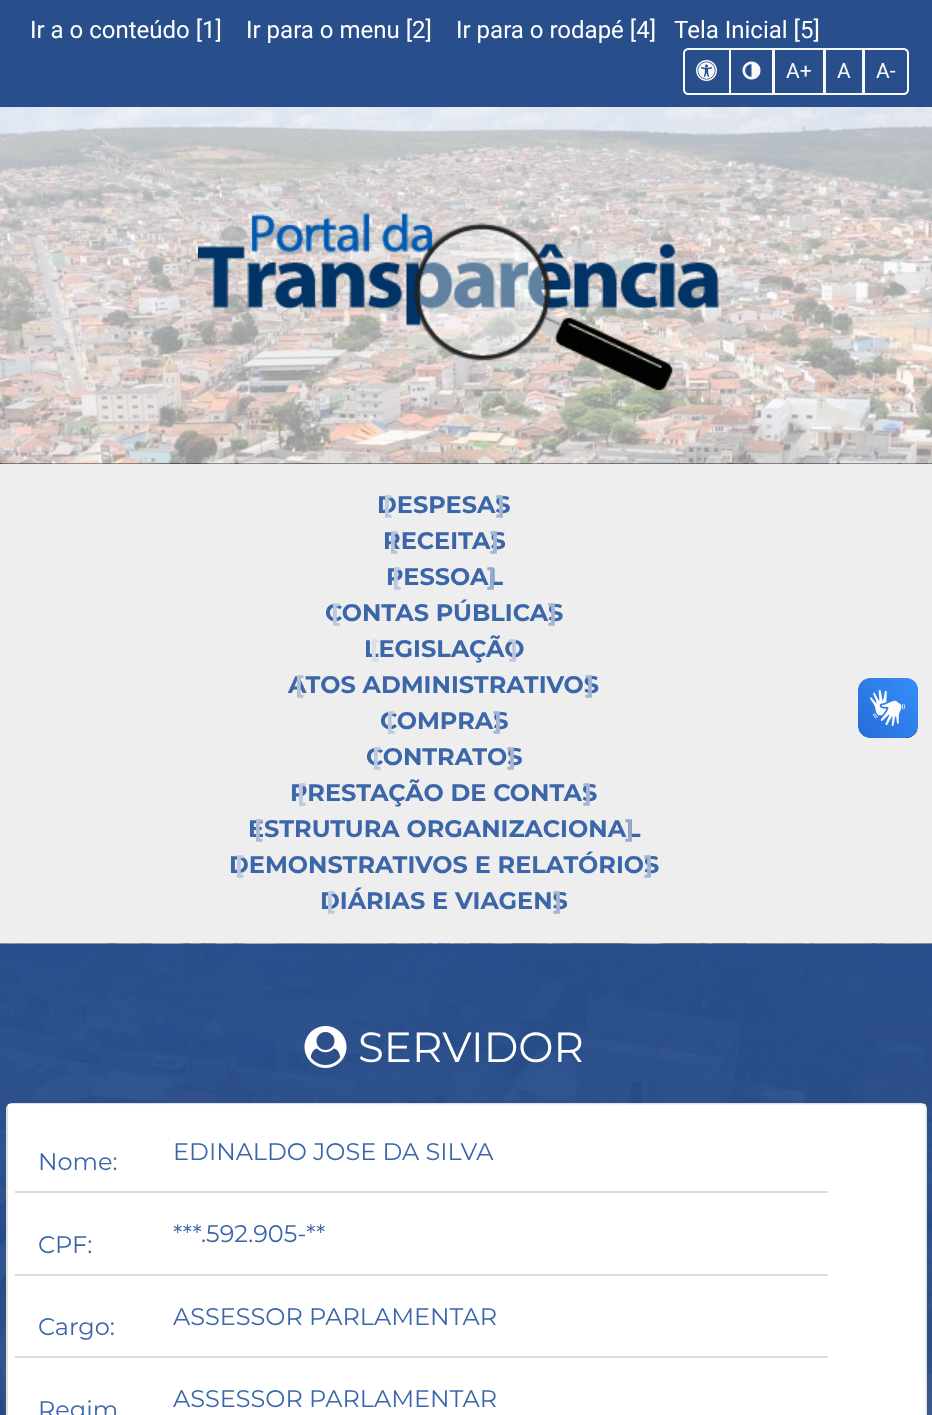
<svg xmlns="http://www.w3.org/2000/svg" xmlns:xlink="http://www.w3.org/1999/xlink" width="932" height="1415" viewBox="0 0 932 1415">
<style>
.cls-1{font:24px Roboto;fill:#ffffff}
.cls-2{font:21px Roboto;fill:#f8f9fa}
.cls-3{font:bold 24px Montserrat;fill:#3c66aa}
.cls-4{font:bold 24px Montserrat;fill:#bcc8db}
.cls-5{font:bold 24px Montserrat;fill:#a4b5d2}
.cls-6{font:bold 24px Montserrat;fill:#b4c2d8}
.cls-7{font:bold 24px Montserrat;fill:#95aacc}
.cls-8{font:bold 24px Montserrat;fill:#dadee6}
.cls-9{font:bold 24px Montserrat;fill:#aabad4}
.cls-10{font:42px Montserrat;fill:#ffffff}
.cls-11{font:24px Montserrat;fill:#3c66aa}
</style>
<defs>
<linearGradient id="g1" gradientUnits="userSpaceOnUse" x1="7.5" y1="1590" x2="926" y2="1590"><stop offset="0" stop-color="#ffffff" stop-opacity="0.98"/><stop offset="1" stop-color="#ffffff" stop-opacity="0.55"/></linearGradient>
</defs>
<rect width="100%" height="100%" fill="#eeeeee"/>
<rect fill="#284e8c" x="0" y="0" width="932" height="107"/>
<path fill="none" stroke="#f8f9fa" stroke-width="2" d="M688 49H730V94H688C686 94 684 92 684 90V53C684 51 686 49 688 49Z"/>
<image xlink:href="image0.png" x="696" y="60" width="21" height="21"/>
<rect fill="none" stroke="#f8f9fa" stroke-width="2" x="730" y="49" width="43" height="45"/>
<image xlink:href="image1.png" x="742" y="61" width="19" height="19"/>
<rect fill="none" stroke="#f8f9fa" stroke-width="2" x="774" y="49" width="50" height="45"/>
<rect fill="none" stroke="#f8f9fa" stroke-width="2" x="825" y="49" width="38" height="45"/>
<path fill="none" stroke="#f8f9fa" stroke-width="2" d="M864 49H904C906 49 908 51 908 53V90C908 92 906 94 904 94H864Z"/>
<rect fill="#000000" x="0" y="463" width="932" height="1"/>
<image xlink:href="image2.png" x="0" y="107" width="932" height="357"/>
<image xlink:href="image3.png" x="198" y="212" width="521" height="179"/>
<image xlink:href="image4.png" x="0" y="943" width="932" height="472"/>
<image xlink:href="image5.png" x="304" y="1026" width="43" height="42"/>
<rect fill="#ffffff" x="6" y="1103" width="921" height="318" rx="6"/>
<rect fill="none" stroke="#000000" stroke-opacity="0.12" stroke-width="2" x="7" y="1104" width="919" height="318" rx="5"/>
<rect fill="url(#g1)" x="8" y="1104" width="918" height="311"/>
<rect fill="#dddada" x="15" y="1191" width="813" height="2"/>
<rect fill="#dddada" x="15" y="1274" width="813" height="2"/>
<rect fill="#dddada" x="15" y="1356" width="813" height="2"/>
<image xlink:href="image6.png" x="858" y="678" width="60" height="60"/>
<image xlink:href="image7.png" x="858" y="678" width="60" height="60"/>
<text class="cls-1" x="30" y="38">Ir a o conteúdo [1]</text>
<text class="cls-1" x="246" y="38">Ir para o menu [2]</text>
<text class="cls-1" x="456" y="38">Ir para o rodapé [4]</text>
<text class="cls-1" x="674" y="38">Tela Inicial [5]</text>
<text class="cls-2" x="786" y="78">A+</text>
<text class="cls-2" x="837" y="78">A</text>
<text class="cls-2" x="876" y="78">A-</text>
<text class="cls-3" x="377" y="513">DESPESAS</text>
<text class="cls-4" x="383" y="513">[</text>
<text class="cls-5" x="496" y="513">]</text>
<text class="cls-3" x="383" y="549">RECEITAS</text>
<text class="cls-6" x="389" y="549">[</text>
<text class="cls-5" x="490" y="549">]</text>
<text class="cls-3" x="386" y="585">PESSOAL</text>
<text class="cls-4" x="392" y="585">[</text>
<text class="cls-7" x="487" y="585">]</text>
<text class="cls-3" x="325" y="621">CONTAS PÚBLICAS</text>
<text class="cls-4" x="331" y="621">[</text>
<text class="cls-5" x="548" y="621">]</text>
<text class="cls-3" x="364" y="657">LEGISLAÇÃO</text>
<text class="cls-8" x="370" y="657">[</text>
<text class="cls-4" x="509" y="657">]</text>
<text class="cls-3" x="288" y="693">ATOS ADMINISTRATIVOS</text>
<text class="cls-6" x="295" y="693">[</text>
<text class="cls-5" x="585" y="693">]</text>
<text class="cls-3" x="380" y="729">COMPRAS</text>
<text class="cls-4" x="386" y="729">[</text>
<text class="cls-5" x="493" y="729">]</text>
<text class="cls-3" x="366" y="765">CONTRATOS</text>
<text class="cls-4" x="372" y="765">[</text>
<text class="cls-5" x="507" y="765">]</text>
<text class="cls-3" x="290" y="801">PRESTAÇÃO DE CONTAS</text>
<text class="cls-4" x="297" y="801">[</text>
<text class="cls-5" x="583" y="801">]</text>
<text class="cls-3" x="248" y="837">ESTRUTURA ORGANIZACIONAL</text>
<text class="cls-9" x="254" y="837">[</text>
<text class="cls-7" x="625" y="837">]</text>
<text class="cls-3" x="229" y="873">DEMONSTRATIVOS E RELATÓRIOS</text>
<text class="cls-4" x="235" y="873">[</text>
<text class="cls-5" x="644" y="873">]</text>
<text class="cls-3" x="320" y="909">DIÁRIAS E VIAGENS</text>
<text class="cls-4" x="326" y="909">[</text>
<text class="cls-5" x="553" y="909">]</text>
<text class="cls-10" x="358" y="1062">SERVIDOR</text>
<text class="cls-11" x="38" y="1170">Nome:</text>
<text class="cls-11" x="173" y="1160">EDINALDO JOSE DA SILVA</text>
<text class="cls-11" x="173" y="1242">***.592.905-**</text>
<text class="cls-11" x="38" y="1253">CPF:</text>
<text class="cls-11" x="38" y="1335">Cargo:</text>
<text class="cls-11" x="173" y="1325">ASSESSOR PARLAMENTAR</text>
<text class="cls-11" x="38" y="1418">Regim</text>
<text class="cls-11" x="173" y="1407">ASSESSOR PARLAMENTAR</text>
</svg>
